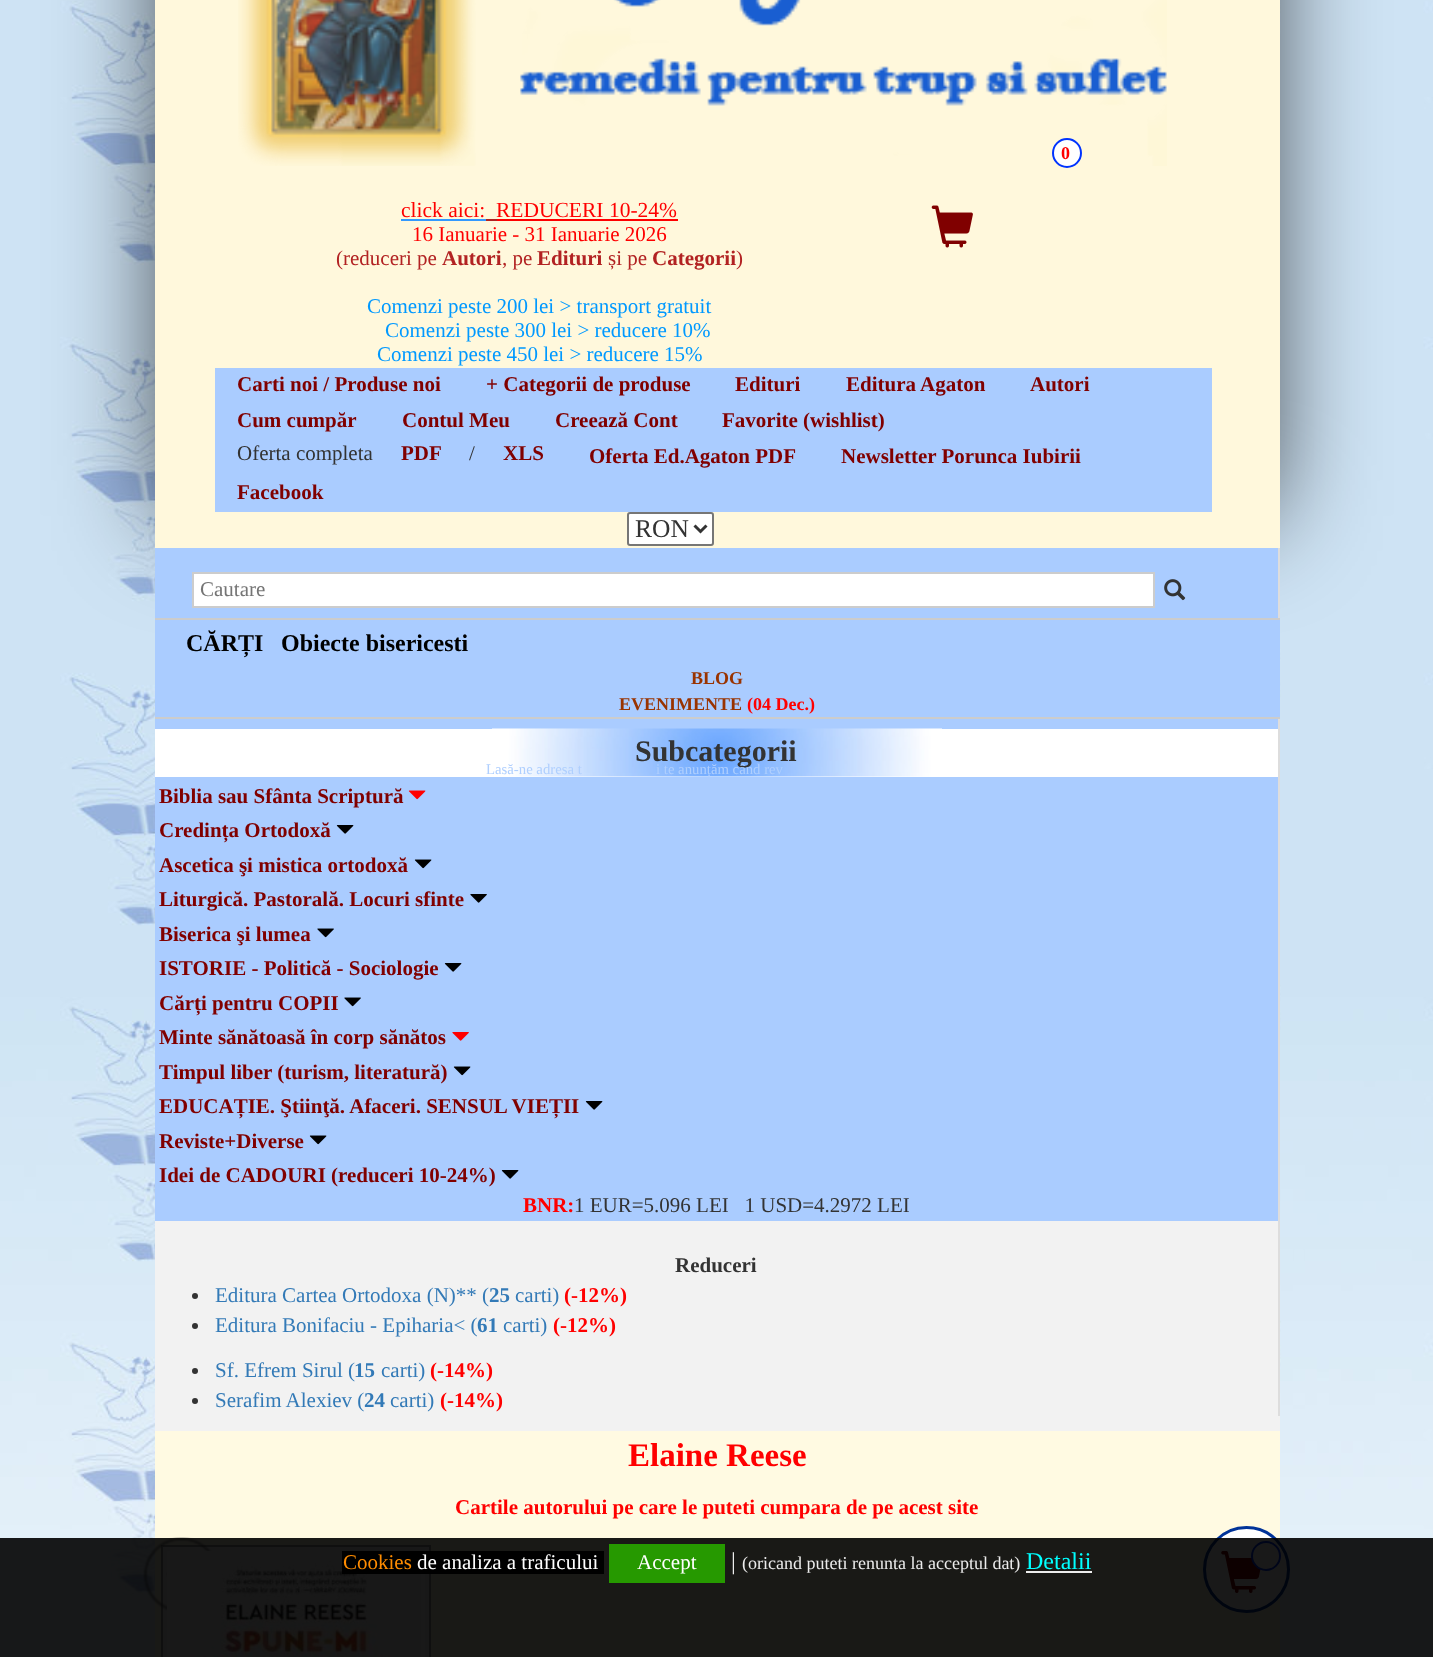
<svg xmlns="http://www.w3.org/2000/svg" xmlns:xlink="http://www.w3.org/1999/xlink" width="1433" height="1657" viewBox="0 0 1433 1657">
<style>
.cls-1{font:bold 18px Liberation Serif;fill:#ff0000}
.cls-2{font:21.5px Liberation Serif;fill:#ff0000}
.cls-3{font:21px Liberation Serif;fill:#ff0000}
.cls-4{font:21px Liberation Serif;fill:#b22222}
.cls-5{font:bold 21px Liberation Serif;fill:#b22222}
.cls-6{font:21px Liberation Serif;fill:#0099ff}
.cls-7{font:bold 21px Liberation Serif;fill:#800000}
.cls-8{font:21px Liberation Serif;fill:#333333}
.cls-9{font:25.5px Liberation Serif;fill:#333333}
.cls-10{font:21px Liberation Serif;fill:#757575}
.cls-11{font:bold 24px Liberation Serif;fill:#000000}
.cls-12{font:bold 18px Liberation Serif;fill:#993300}
.cls-13{font:bold 30px Liberation Serif;fill:#333333}
.cls-14{font:bold 21px Liberation Serif;fill:#ff0000}
.cls-15{font:bold 21px Liberation Serif;fill:#333333}
.cls-16{font:21px Liberation Serif;fill:#337ab7}
.cls-17{font:bold 21px Liberation Serif;fill:#337ab7}
.cls-18{font:14.75px Liberation Serif;fill:#afcffe}
.cls-19{font:bold 33px Liberation Serif;fill:#ff0000}
.cls-20{font:21px Liberation Serif;fill:#ff8c00}
.cls-21{font:21px Liberation Serif;fill:#ffffff}
.cls-22{font:24px Liberation Serif;fill:#ededed}
.cls-23{font:18px Liberation Serif;fill:#ededed}
.cls-24{font:24px Liberation Serif;fill:#00ffff}
</style>
<rect width="100%" height="100%" fill="#ffffff"/>
<image xlink:href="image0.png" x="0" y="0" width="1433" height="1657"/>
<rect fill="#000000" fill-opacity="0.75" filter="blur(53px)" x="165" y="-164" width="1104" height="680" rx="5"/>
<rect fill="#fff8dc" x="155" y="0" width="1125" height="548"/>
<image xlink:href="image1.png" x="238" y="0" width="929" height="166"/>
<circle fill="#ffffff" stroke="#0033ff" stroke-width="2" cx="1067" cy="153" r="14"/>
<image xlink:href="image2.png" x="931" y="205" width="42" height="43"/>
<rect fill="#3399ff" x="401" y="219" width="85" height="2"/>
<rect fill="#b22222" x="486" y="219" width="11" height="2"/>
<rect fill="#ff0000" x="497" y="219" width="181" height="2"/>
<rect fill="#aaccff" x="215" y="368" width="997" height="144"/>
<rect fill="#ffffff" stroke="#767676" stroke-width="2" x="628" y="513" width="85" height="32" rx="2"/>
<path fill="none" stroke="#333333" stroke-width="3" d="M694.5 525.5L700.5 531.5L706.5 525.5"/>
<rect fill="#aaccff" x="155" y="548" width="1123" height="673"/>
<rect fill="#ffffff" stroke="#cccccc" stroke-width="2" x="193" y="573" width="961" height="34"/>
<image xlink:href="image3.png" x="1164" y="579" width="22" height="22"/>
<rect fill="#f2f2f2" x="155" y="1221" width="1125" height="210"/>
<rect fill="#dddddd" x="1278" y="548" width="2" height="868"/>
<rect fill="#aaccff" x="1278" y="620" width="2" height="97"/>
<rect fill="#cccccc" x="155" y="618" width="1125" height="2"/>
<rect fill="#cccccc" x="155" y="717" width="1125" height="2"/>
<rect fill="#ffffff" x="155" y="729" width="1123" height="48"/>
<image xlink:href="image4.png" x="492" y="728" width="450" height="49"/>
<image xlink:href="image5.png" x="408" y="790" width="18" height="10"/>
<image xlink:href="image6.png" x="336" y="825" width="18" height="9"/>
<image xlink:href="image7.png" x="414" y="859" width="18" height="10"/>
<image xlink:href="image8.png" x="470" y="894" width="17" height="9"/>
<image xlink:href="image9.png" x="317" y="928" width="17" height="10"/>
<image xlink:href="image6.png" x="444" y="963" width="18" height="9"/>
<image xlink:href="image9.png" x="344" y="997" width="17" height="10"/>
<image xlink:href="image10.png" x="452" y="1032" width="17" height="9"/>
<image xlink:href="image7.png" x="453" y="1066" width="18" height="10"/>
<image xlink:href="image6.png" x="585" y="1101" width="18" height="9"/>
<image xlink:href="image7.png" x="309" y="1135" width="18" height="10"/>
<image xlink:href="image6.png" x="501" y="1170" width="18" height="9"/>
<circle fill="#333333" cx="195" cy="1296" r="3"/>
<circle fill="#333333" cx="195" cy="1326" r="3"/>
<circle fill="#333333" cx="195" cy="1371" r="3"/>
<circle fill="#333333" cx="195" cy="1401" r="3"/>
<rect fill="#fffae2" x="155" y="1431" width="1125" height="226"/>
<rect fill="#f2f2f2" stroke="#999999" stroke-width="2" x="162" y="1546" width="268" height="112"/>
<image xlink:href="image12.png" x="143" y="1537" width="69" height="74"/>
<rect fill="#ffffff" x="167" y="1551" width="258" height="106"/>
<image xlink:href="image11.png" x="169" y="1550" width="253" height="107"/>
<circle fill="#ffffff" stroke="#003399" stroke-width="3" cx="1246.5" cy="1569.5" r="42"/>
<image xlink:href="image13.png" x="1221" y="1551" width="40" height="42"/>
<circle fill="#ffffff" stroke="#0033ff" stroke-width="2" cx="1266" cy="1556" r="14"/>
<rect fill="#000000" fill-opacity="0.9" x="0" y="1538" width="1433" height="119"/>
<rect fill="#000000" x="342" y="1551" width="262" height="23"/>
<rect fill="#269900" x="609" y="1544" width="116" height="39"/>
<rect fill="#ededed" x="1026" y="1571" width="66" height="2"/>
<text class="cls-1" x="1061" y="159">0</text>
<text class="cls-2" x="401" y="217">click aici:</text>
<text class="cls-2" x="496" y="217">REDUCERI 10-24%</text>
<text class="cls-3" x="412" y="241">16 Ianuarie - 31 Ianuarie 2026</text>
<text class="cls-4" x="336" y="265">(reduceri pe</text>
<text class="cls-5" x="442" y="265">Autori</text>
<text class="cls-4" x="502" y="265">, pe</text>
<text class="cls-5" x="537" y="265">Edituri</text>
<text class="cls-4" x="608" y="265">și pe</text>
<text class="cls-5" x="652" y="265">Categorii</text>
<text class="cls-4" x="736" y="265">)</text>
<text class="cls-6" x="367" y="313">Comenzi peste 200 lei &gt; transport gratuit</text>
<text class="cls-6" x="385" y="337">Comenzi peste 300 lei &gt; reducere 10%</text>
<text class="cls-6" x="377" y="361">Comenzi peste 450 lei &gt; reducere 15%</text>
<text class="cls-7" x="237" y="391">Carti noi / Produse noi</text>
<text class="cls-7" x="486" y="391">+ Categorii de produse</text>
<text class="cls-7" x="735" y="391">Edituri</text>
<text class="cls-7" x="846" y="391">Editura Agaton</text>
<text class="cls-7" x="1030" y="391">Autori</text>
<text class="cls-7" x="237" y="427">Cum cumpăr</text>
<text class="cls-7" x="402" y="427">Contul Meu</text>
<text class="cls-7" x="555" y="427">Creează Cont</text>
<text class="cls-7" x="722" y="427">Favorite (wishlist)</text>
<text class="cls-8" x="237" y="460">Oferta completa</text>
<text class="cls-7" x="401" y="460">PDF</text>
<text class="cls-8" x="469" y="460">/</text>
<text class="cls-7" x="503" y="460">XLS</text>
<text class="cls-7" x="589" y="463">Oferta Ed.Agaton PDF</text>
<text class="cls-7" x="841" y="463">Newsletter Porunca Iubirii</text>
<text class="cls-7" x="237" y="499">Facebook</text>
<text class="cls-9" x="635" y="537">RON</text>
<text class="cls-10" x="200" y="596">Cautare</text>
<text class="cls-11" x="186" y="651">CĂRȚI</text>
<text class="cls-11" x="281" y="651">Obiecte bisericesti</text>
<text class="cls-12" x="691" y="684">BLOG</text>
<text class="cls-12" x="619" y="710">EVENIMENTE</text>
<text class="cls-1" x="747" y="710">(04 Dec.)</text>
<text class="cls-13" x="635" y="761">Subcategorii</text>
<text class="cls-7"><tspan x="159" y="803">Biblia sau Sfânta Scriptură</tspan><tspan x="159" y="837">Credința Ortodoxă</tspan><tspan x="159" y="872">Ascetica şi mistica ortodoxă</tspan><tspan x="159" y="906">Liturgică. Pastorală. Locuri sfinte</tspan><tspan x="159" y="941">Biserica şi lumea</tspan><tspan x="159" y="975">ISTORIE - Politică - Sociologie</tspan><tspan x="159" y="1010">Cărți pentru COPII</tspan><tspan x="159" y="1044">Minte sănătoasă în corp sănătos</tspan><tspan x="159" y="1079">Timpul liber (turism, literatură)</tspan><tspan x="159" y="1113">EDUCAȚIE. Ştiinţă. Afaceri. SENSUL VIEȚII</tspan><tspan x="159" y="1148">Reviste+Diverse</tspan><tspan x="159" y="1182">Idei de CADOURI (reduceri 10-24%)</tspan></text>
<text class="cls-14" x="523" y="1212">BNR:</text>
<text class="cls-8" xml:space="preserve" x="574" y="1212">1 EUR=5.096 LEI   1 USD=4.2972 LEI</text>
<text class="cls-15" x="675" y="1272">Reduceri</text>
<text class="cls-16" x="215" y="1302">Editura Cartea Ortodoxa (N)** (</text>
<text class="cls-17" x="489" y="1302">25</text>
<text class="cls-16" x="515" y="1302">carti)</text>
<text class="cls-14" x="564" y="1302">(-12%)</text>
<text class="cls-16" x="215" y="1332">Editura Bonifaciu - Epiharia&lt; (</text>
<text class="cls-17" x="477" y="1332">61</text>
<text class="cls-16" x="503" y="1332">carti)</text>
<text class="cls-14" x="553" y="1332">(-12%)</text>
<text class="cls-16" x="215" y="1377">Sf. Efrem Sirul (</text>
<text class="cls-17" x="354" y="1377">15</text>
<text class="cls-16" x="381" y="1377">carti)</text>
<text class="cls-14" x="430" y="1377">(-14%)</text>
<text class="cls-16" x="215" y="1407">Serafim Alexiev (</text>
<text class="cls-17" x="364" y="1407">24</text>
<text class="cls-16" x="390" y="1407">carti)</text>
<text class="cls-14" x="440" y="1407">(-14%)</text>
<text class="cls-18" x="486" y="774">Lasă-ne adresa t</text>
<text class="cls-18" x="656" y="774">i te anunțăm când rev</text>
<text class="cls-19" x="628" y="1466">Elaine Reese</text>
<text class="cls-14" x="455" y="1514">Cartile autorului pe care le puteti cumpara de pe acest site</text>
<text class="cls-20" x="343" y="1569">Cookies</text>
<text class="cls-21" x="417" y="1569">de analiza a traficului</text>
<text class="cls-21" x="637" y="1569">Accept</text>
<text class="cls-22" x="731" y="1569">|</text>
<text class="cls-23" x="742" y="1569">(oricand puteti renunta la acceptul dat)</text>
<text class="cls-24" x="1026" y="1569">Detalii</text>
</svg>
